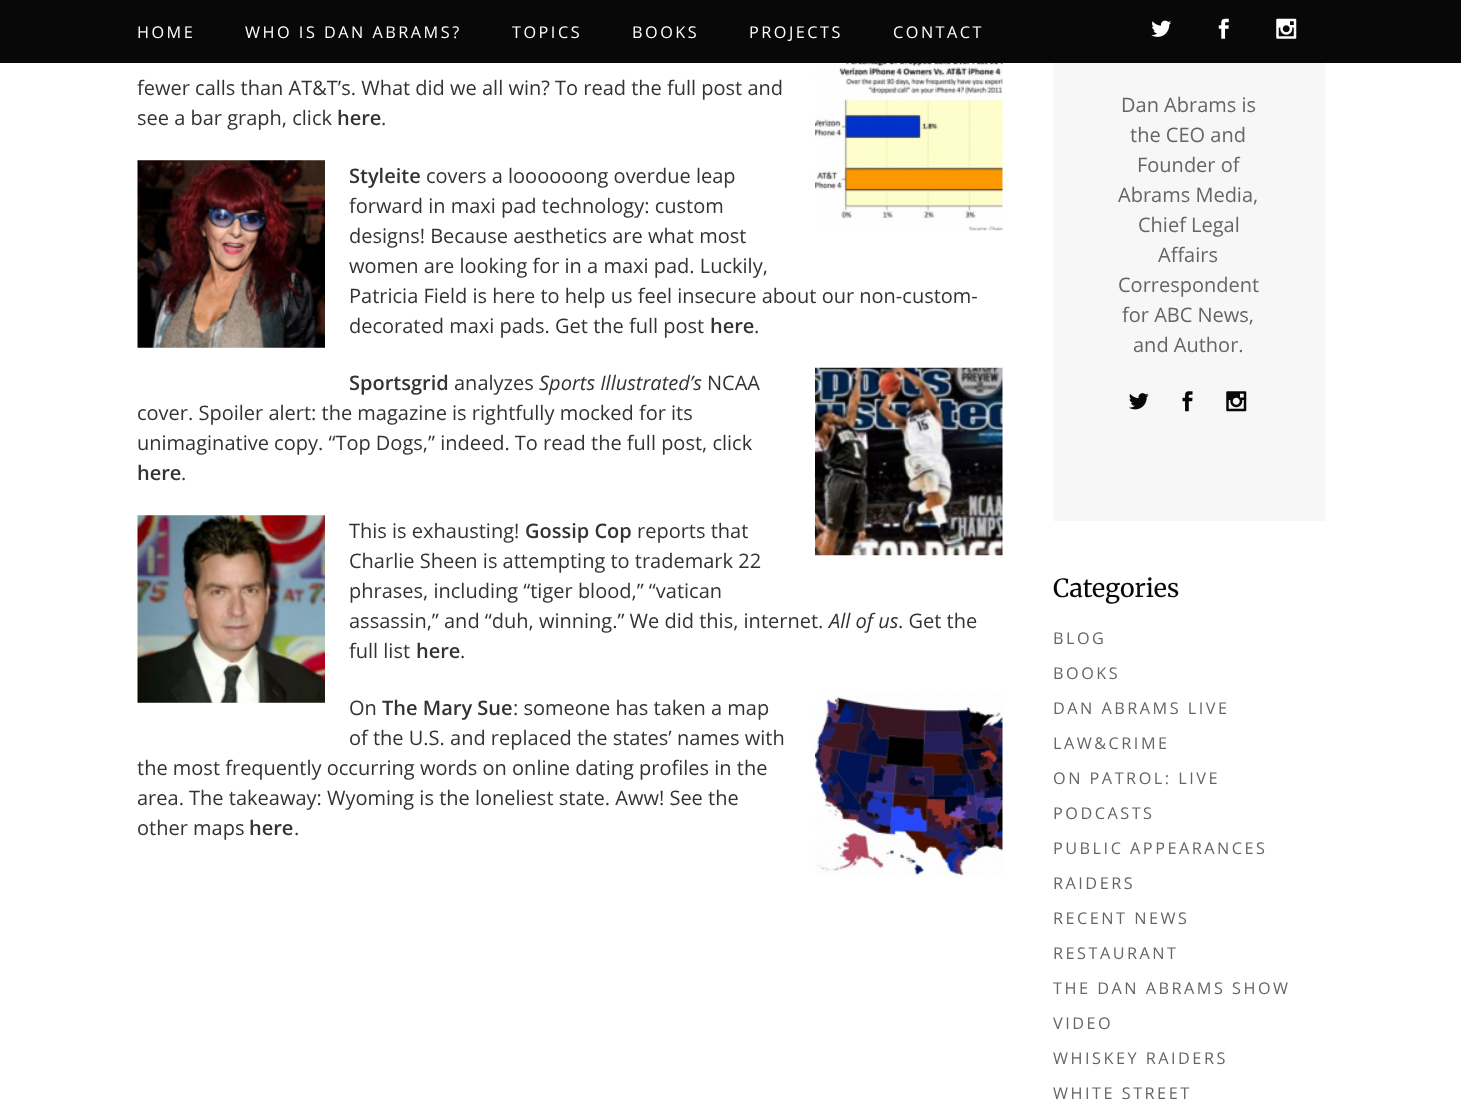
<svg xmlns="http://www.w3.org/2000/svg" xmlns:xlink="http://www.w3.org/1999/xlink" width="1461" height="1110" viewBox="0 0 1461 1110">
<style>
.cls-1{font:16.25px Open Sans;letter-spacing:2.5px;fill:#ffffff}
.cls-2{font:20px Open Sans;fill:#333333}
.cls-3{font:600 20px Open Sans;fill:#333333}
.cls-4{font:italic 20px Open Sans;fill:#333333}
.cls-5{font:20px Open Sans;fill:#656565}
.cls-6{font:25px Merriweather;fill:#080808}
.cls-7{font:16.25px Open Sans;letter-spacing:2.5px;fill:#656565}
</style>
<rect width="100%" height="100%" fill="#ffffff"/>
<rect fill="#080808" x="0" y="0" width="1461" height="63"/>
<image xlink:href="image0.png" x="1151" y="20" width="21" height="17"/>
<image xlink:href="image1.png" x="1218" y="18" width="11" height="21"/>
<image xlink:href="image2.png" x="1276" y="18" width="21" height="21"/>
<image xlink:href="image3.png" x="815" y="63" width="188" height="168"/>
<image xlink:href="image4.png" x="137" y="160" width="188" height="188"/>
<image xlink:href="image5.png" x="815" y="367" width="188" height="189"/>
<image xlink:href="image6.png" x="137" y="515" width="188" height="188"/>
<image xlink:href="image7.png" x="815" y="694" width="188" height="184"/>
<rect fill="#f7f7f7" x="1053" y="63" width="272" height="458"/>
<image xlink:href="image8.png" x="1129" y="393" width="20" height="17"/>
<image xlink:href="image9.png" x="1182" y="391" width="11" height="21"/>
<image xlink:href="image10.png" x="1226" y="391" width="21" height="21"/>
<text class="cls-1" x="137" y="38">HOME</text>
<text class="cls-1" x="245" y="38">WHO IS DAN ABRAMS?</text>
<text class="cls-1" x="512" y="38">TOPICS</text>
<text class="cls-1" x="632" y="38">BOOKS</text>
<text class="cls-1" x="749" y="38">PROJECTS</text>
<text class="cls-1" x="893" y="38">CONTACT</text>
<text class="cls-2"><tspan x="137" y="95">fewer calls than AT&amp;T’s. What did we all win? To read the full post and</tspan><tspan x="137" y="125">see a bar graph, click</tspan></text>
<text class="cls-3" x="337" y="125">here</text>
<text class="cls-2" x="381" y="125">.</text>
<text class="cls-3" x="349" y="183">Styleite</text>
<text class="cls-2" x="426" y="183">covers a loooooong overdue leap</text>
<text class="cls-2"><tspan x="349" y="213">forward in maxi pad technology: custom</tspan><tspan x="349" y="243">designs! Because aesthetics are what most</tspan><tspan x="349" y="273">women are looking for in a maxi pad. Luckily,</tspan><tspan x="349" y="303">Patricia Field is here to help us feel insecure about our non-custom-</tspan><tspan x="349" y="333">decorated maxi pads. Get the full post</tspan></text>
<text class="cls-3" x="710" y="333">here</text>
<text class="cls-2" x="754" y="333">.</text>
<text class="cls-3" x="349" y="390">Sportsgrid</text>
<text class="cls-2" x="454" y="390">analyzes</text>
<text class="cls-4" x="539" y="390">Sports Illustrated’s</text>
<text class="cls-2" x="707" y="390">NCAA</text>
<text class="cls-2"><tspan x="137" y="420">cover. Spoiler alert: the magazine is rightfully mocked for its</tspan><tspan x="137" y="450">unimaginative copy. “Top Dogs,” indeed. To read the full post, click</tspan></text>
<text class="cls-3" x="137" y="480">here</text>
<text class="cls-2" x="181" y="480">.</text>
<text class="cls-2" x="349" y="538">This is exhausting!</text>
<text class="cls-3" x="525" y="538">Gossip Cop</text>
<text class="cls-2" x="637" y="538">reports that</text>
<text class="cls-2"><tspan x="349" y="568">Charlie Sheen is attempting to trademark 22</tspan><tspan x="349" y="598">phrases, including “tiger blood,” “vatican</tspan><tspan x="349" y="628">assassin,” and “duh, winning.” We did this, internet.</tspan></text>
<text class="cls-4" x="829" y="628">All of us</text>
<text class="cls-2" x="898" y="628">. Get the</text>
<text class="cls-2" x="349" y="658">full list</text>
<text class="cls-3" x="416" y="658">here</text>
<text class="cls-2" x="460" y="658">.</text>
<text class="cls-2" x="349" y="715">On</text>
<text class="cls-3" x="382" y="715">The Mary Sue</text>
<text class="cls-2" x="513" y="715">: someone has taken a map</text>
<text class="cls-2" x="349" y="745">of the U.S. and replaced the states’ names with</text>
<text class="cls-2"><tspan x="137" y="775">the most frequently occurring words on online dating profiles in the</tspan><tspan x="137" y="805">area. The takeaway: Wyoming is the loneliest state. Aww! See the</tspan><tspan x="137" y="835">other maps</tspan></text>
<text class="cls-3" x="249" y="835">here</text>
<text class="cls-2" x="294" y="835">.</text>
<text class="cls-5" x="1121" y="112">Dan Abrams is</text>
<text class="cls-5" x="1130" y="142">the CEO and</text>
<text class="cls-5" x="1137" y="172">Founder of</text>
<text class="cls-5" x="1118" y="202">Abrams Media,</text>
<text class="cls-5" x="1138" y="232">Chief Legal</text>
<text class="cls-5" x="1158" y="262">Affairs</text>
<text class="cls-5" x="1118" y="292">Correspondent</text>
<text class="cls-5" x="1122" y="322">for ABC News,</text>
<text class="cls-5" x="1133" y="352">and Author.</text>
<text class="cls-6" x="1053" y="597">Categories</text>
<text class="cls-7" x="1053" y="644">BLOG</text>
<text class="cls-7" x="1053" y="679">BOOKS</text>
<text class="cls-7" x="1053" y="714">DAN ABRAMS LIVE</text>
<text class="cls-7" x="1053" y="749">LAW&amp;CRIME</text>
<text class="cls-7" x="1053" y="784">ON PATROL: LIVE</text>
<text class="cls-7" x="1053" y="819">PODCASTS</text>
<text class="cls-7" x="1053" y="854">PUBLIC APPEARANCES</text>
<text class="cls-7" x="1053" y="889">RAIDERS</text>
<text class="cls-7" x="1053" y="924">RECENT NEWS</text>
<text class="cls-7" x="1053" y="959">RESTAURANT</text>
<text class="cls-7" x="1053" y="994">THE DAN ABRAMS SHOW</text>
<text class="cls-7" x="1053" y="1029">VIDEO</text>
<text class="cls-7" x="1053" y="1064">WHISKEY RAIDERS</text>
<text class="cls-7" x="1053" y="1099">WHITE STREET</text>
</svg>
